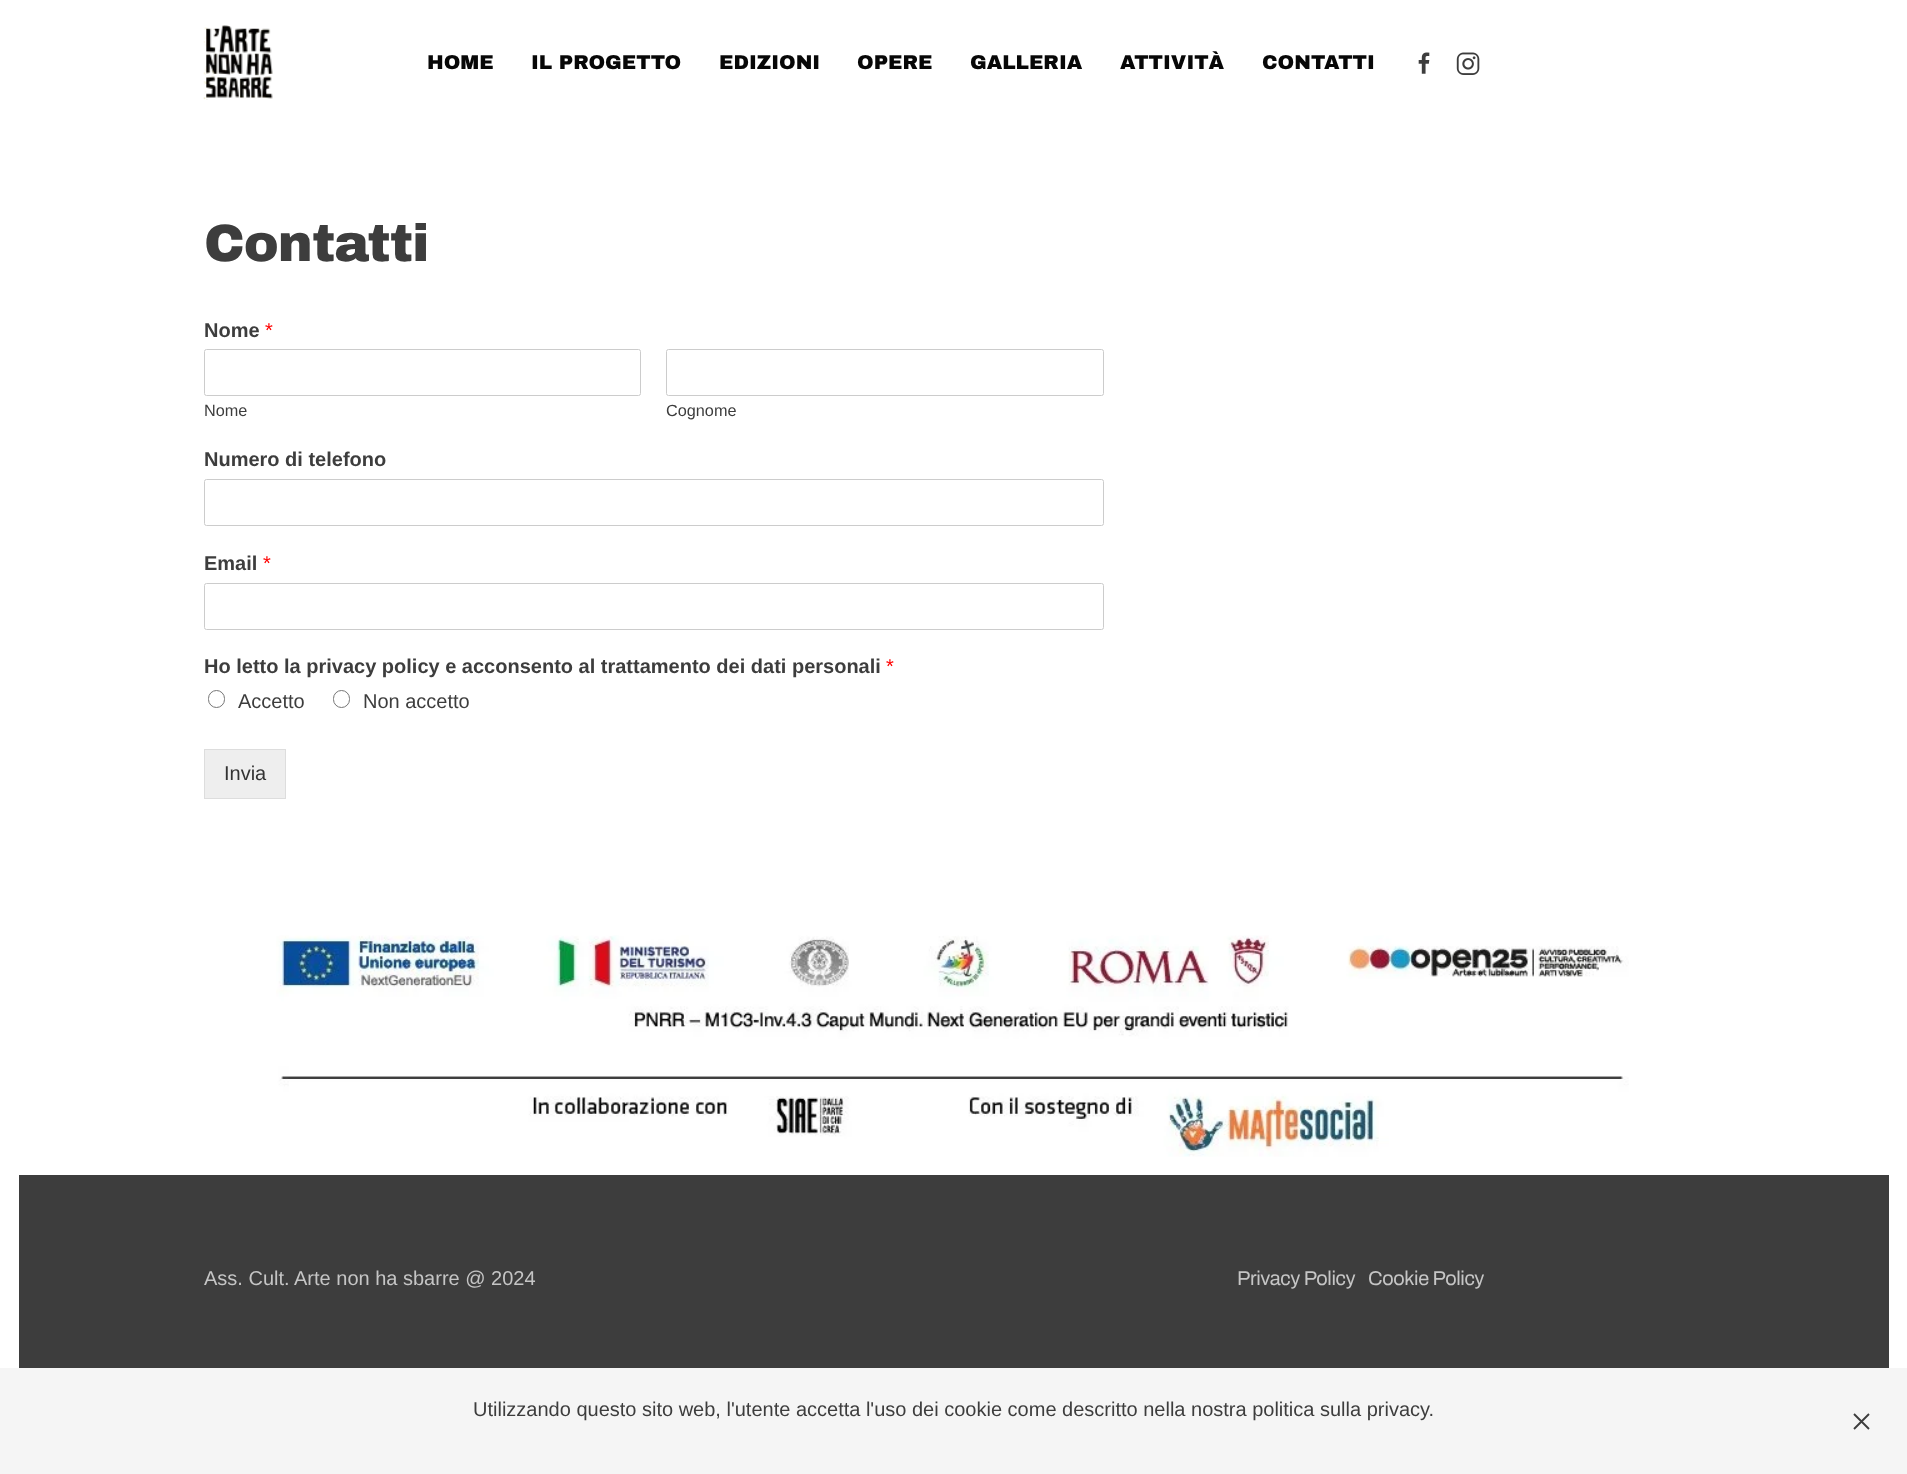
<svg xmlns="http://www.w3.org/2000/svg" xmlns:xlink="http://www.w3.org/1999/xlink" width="1907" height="1474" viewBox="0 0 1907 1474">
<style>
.cls-1{font:900 20px Archivo Black;fill:#070707}
.cls-2{font:900 52.5px Archivo Black;letter-spacing:-1px;fill:#3d3d3d}
.cls-3{font:bold 20px Liberation Sans;fill:#3d3d3d}
.cls-4{font:20px Liberation Sans;fill:#ff0000}
.cls-5{font:16.25px Liberation Sans;fill:#3d3d3d}
.cls-6{font:20px Liberation Sans;fill:#3d3d3d}
.cls-7{font:20px Liberation Sans;fill:#333333}
.cls-8{font:20px Liberation Sans;fill:#c5c5c5}
.cls-9{font:600 20px Archivo;letter-spacing:-0.4px;fill:#c5c5c5}
</style>
<rect width="100%" height="100%" fill="#ffffff"/>
<image xlink:href="image0.png" x="203" y="25" width="70" height="75"/>
<image xlink:href="image1.png" x="1418" y="52" width="12" height="22"/>
<image xlink:href="image2.png" x="1456" y="52" width="24" height="23"/>
<rect fill="none" stroke="#cccccc" x="204.5" y="349.5" width="436" height="46" rx="2"/>
<rect fill="none" stroke="#cccccc" x="666.5" y="349.5" width="437" height="46" rx="2"/>
<rect fill="none" stroke="#cccccc" x="204.5" y="479.5" width="899" height="46" rx="2"/>
<rect fill="none" stroke="#cccccc" x="204.5" y="583.5" width="899" height="46" rx="2"/>
<rect fill="none" stroke="#767676" x="208.5" y="690.5" width="16" height="17" rx="8"/>
<rect fill="none" stroke="#767676" x="333.5" y="690.5" width="16" height="17" rx="8"/>
<rect fill="#eeeeee" stroke="#dddddd" x="204.5" y="749.5" width="81" height="49"/>
<image xlink:href="image3.png" x="276" y="935" width="1353" height="222"/>
<rect fill="#3d3d3d" x="19" y="1175" width="1870" height="193"/>
<rect fill="#f5f5f5" x="0" y="1368" width="1907" height="106"/>
<path fill="none" stroke="#3d3d3d" stroke-width="1.9" d="M1854 1414L1869 1429M1869 1414L1854 1429"/>
<text class="cls-1" x="427" y="69">HOME</text>
<text class="cls-1" x="531" y="69">IL PROGETTO</text>
<text class="cls-1" x="719" y="69">EDIZIONI</text>
<text class="cls-1" x="857" y="69">OPERE</text>
<text class="cls-1" x="970" y="69">GALLERIA</text>
<text class="cls-1" x="1120" y="69">ATTIVITÀ</text>
<text class="cls-1" x="1262" y="69">CONTATTI</text>
<text class="cls-2" x="204" y="261">Contatti</text>
<text class="cls-3" x="204" y="337">Nome</text>
<text class="cls-4" x="265" y="337">*</text>
<text class="cls-5" x="204" y="416">Nome</text>
<text class="cls-5" x="666" y="416">Cognome</text>
<text class="cls-3" x="204" y="466">Numero di telefono</text>
<text class="cls-3" x="204" y="570">Email</text>
<text class="cls-4" x="263" y="570">*</text>
<text class="cls-3" x="204" y="673">Ho letto la privacy policy e acconsento al trattamento dei dati personali</text>
<text class="cls-4" x="886" y="673">*</text>
<text class="cls-6" x="238" y="708">Accetto</text>
<text class="cls-6" x="363" y="708">Non accetto</text>
<text class="cls-7" x="224" y="780">Invia</text>
<text class="cls-8" x="204" y="1285">Ass. Cult. Arte non ha sbarre @ 2024</text>
<text class="cls-9" x="1237" y="1285">Privacy Policy</text>
<text class="cls-9" x="1368" y="1285">Cookie Policy</text>
<text class="cls-6" x="473" y="1416">Utilizzando questo sito web, l'utente accetta l'uso dei cookie come descritto nella nostra politica sulla privacy.</text>
</svg>
